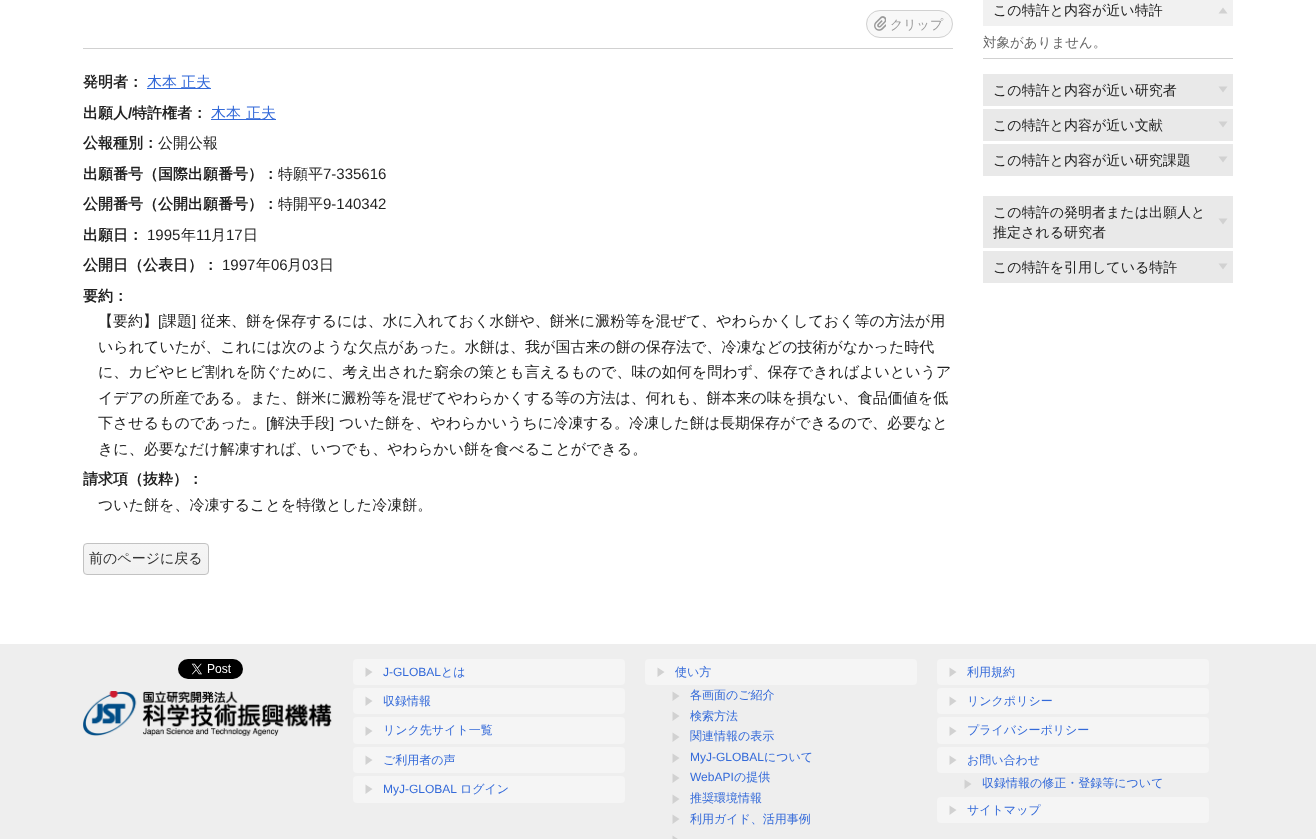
<svg xmlns="http://www.w3.org/2000/svg" xmlns:xlink="http://www.w3.org/1999/xlink" width="1316" height="839" viewBox="0 0 1316 839">
<style>
.cls-1{font:500 13px WenQuanYi Zen Hei;fill:#999999}
.cls-2{font:bold 15px WenQuanYi Zen Hei;fill:#222222}
.cls-3{font:500 15px WenQuanYi Zen Hei;fill:#346ad9}
.cls-4{font:bold 15px Liberation Sans;fill:#222222}
.cls-5{font:500 15px WenQuanYi Zen Hei;fill:#222222}
.cls-6{font:15px Liberation Sans;fill:#222222}
.cls-7{font:500 14px WenQuanYi Zen Hei;fill:#333333}
.cls-8{font:500 14px WenQuanYi Zen Hei;fill:#222222}
.cls-9{font:500 13.5px WenQuanYi Zen Hei;fill:#666666}
.cls-10{font:12px Liberation Sans;fill:#346ad9}
.cls-11{font:500 12px WenQuanYi Zen Hei;fill:#346ad9}
</style>
<defs>
<clipPath id="clip1"><rect x="83" y="543" width="126" height="32" rx="4"/></clipPath>
<linearGradient id="g1" gradientUnits="userSpaceOnUse" x1="146" y1="544" x2="146" y2="574"><stop offset="0" stop-color="#f5f5f5"/><stop offset="1" stop-color="#f1f1f1"/></linearGradient>
</defs>
<rect width="100%" height="100%" fill="#ffffff"/>
<rect fill="#d1d1d1" x="83" y="48" width="870" height="1"/>
<rect fill="#f8f8f8" x="866" y="10" width="87" height="28" rx="14"/>
<image xlink:href="image0.png" x="874" y="16" width="12" height="15"/>
<rect fill="none" stroke="#d1d1d1" x="866.5" y="10.5" width="86" height="27" rx="13.5"/>
<rect fill="#346ad9" x="147" y="88" width="64" height="1"/>
<rect fill="#346ad9" x="211" y="119" width="65" height="1"/>
<g clip-path="url(#clip1)">
<rect fill="url(#g1)" x="83" y="544" width="126" height="30"/>
</g>
<rect fill="none" stroke="#c2c2c2" x="83.5" y="543.5" width="125" height="31" rx="3.5"/>
<rect fill="#f1f1f1" x="983" y="0" width="250" height="26"/>
<path fill="#d1d1d1" d="M1218.5 13.5L1223 7.5L1227.5 13.5Z"/>
<rect fill="#d1d1d1" x="983" y="58" width="250" height="1"/>
<rect fill="#e9e9e9" x="983" y="74" width="250" height="32"/>
<path fill="#d1d1d1" d="M1227.5 86.5L1223 92.5L1218.5 86.5Z"/>
<rect fill="#e9e9e9" x="983" y="109" width="250" height="32"/>
<path fill="#d1d1d1" d="M1227.5 121.5L1223 127.5L1218.5 121.5Z"/>
<rect fill="#e9e9e9" x="983" y="144" width="250" height="32"/>
<path fill="#d1d1d1" d="M1227.5 156.5L1223 162.5L1218.5 156.5Z"/>
<rect fill="#e9e9e9" x="983" y="196" width="250" height="52"/>
<path fill="#d1d1d1" d="M1227.5 218.5L1223 224.5L1218.5 218.5Z"/>
<rect fill="#e9e9e9" x="983" y="251" width="250" height="32"/>
<path fill="#d1d1d1" d="M1227.5 263.5L1223 269.5L1218.5 263.5Z"/>
<rect fill="#eeeeee" x="0" y="644" width="1316" height="195"/>
<image xlink:href="image1.png" x="178" y="659" width="65" height="20"/>
<image xlink:href="image2.png" x="83" y="691" width="249" height="45"/>
<rect fill="#f5f5f5" x="353" y="659" width="272" height="26" rx="4"/>
<path fill="#d1d1d1" d="M365.5 667.5L372.5 672L365.5 677Z"/>
<rect fill="#f5f5f5" x="353" y="688" width="272" height="26" rx="4"/>
<path fill="#d1d1d1" d="M365.5 696.5L372.5 701L365.5 706Z"/>
<rect fill="#f5f5f5" x="353" y="717" width="272" height="27" rx="4"/>
<path fill="#d1d1d1" d="M365.5 726.5L372.5 731L365.5 736Z"/>
<rect fill="#f5f5f5" x="353" y="747" width="272" height="26" rx="4"/>
<path fill="#d1d1d1" d="M365.5 755.5L372.5 760L365.5 765Z"/>
<rect fill="#f5f5f5" x="353" y="776" width="272" height="27" rx="4"/>
<path fill="#d1d1d1" d="M365.5 784.5L372.5 789L365.5 794Z"/>
<rect fill="#f5f5f5" x="645" y="659" width="272" height="26" rx="4"/>
<path fill="#d1d1d1" d="M657.5 667.5L664.5 672L657.5 677ZM672.5 691.5L679.5 696L672.5 701ZM672.5 711.5L679.5 716L672.5 721Z"/>
<path fill="#d1d1d1" d="M672.5 732.5L679.5 737L672.5 742ZM672.5 753.5L679.5 758L672.5 763ZM672.5 773.5L679.5 778L672.5 783Z"/>
<path fill="#d1d1d1" d="M672.5 794.5L679.5 799L672.5 804ZM672.5 814.5L679.5 819L672.5 824ZM672.5 835.5L679.5 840L672.5 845Z"/>
<rect fill="#f5f5f5" x="937" y="659" width="272" height="26" rx="4"/>
<path fill="#d1d1d1" d="M949.5 667.5L956.5 672L949.5 677Z"/>
<rect fill="#f5f5f5" x="937" y="688" width="272" height="26" rx="4"/>
<path fill="#d1d1d1" d="M949.5 696.5L956.5 701L949.5 706Z"/>
<rect fill="#f5f5f5" x="937" y="717" width="272" height="27" rx="4"/>
<path fill="#d1d1d1" d="M949.5 726.5L956.5 731L949.5 736Z"/>
<rect fill="#f5f5f5" x="937" y="747" width="272" height="26" rx="4"/>
<path fill="#d1d1d1" d="M949.5 755.5L956.5 760L949.5 765ZM964.5 779.5L971.5 784L964.5 789Z"/>
<rect fill="#f5f5f5" x="937" y="797" width="272" height="26" rx="4"/>
<path fill="#d1d1d1" d="M949.5 805.5L956.5 810L949.5 815Z"/>
<text class="cls-1" x="890" y="29">クリップ</text>
<text class="cls-2" x="83" y="87">発明者：</text>
<text class="cls-3" x="147" y="87">木本</text>
<text class="cls-3" x="181" y="87">正夫</text>
<text class="cls-2" x="83" y="118">出願人</text>
<text class="cls-4" x="128" y="118">/</text>
<text class="cls-2" x="132" y="118">特許権者：</text>
<text class="cls-3" x="211" y="118">木本</text>
<text class="cls-3" x="246" y="118">正夫</text>
<text class="cls-2" x="83" y="148">公報種別：</text>
<text class="cls-5" x="158" y="148">公開公報</text>
<text class="cls-2" x="83" y="179">出願番号（国際出願番号）：</text>
<text class="cls-5" x="278" y="179">特願平</text>
<text class="cls-6" x="323" y="179">7-335616</text>
<text class="cls-2" x="83" y="209">公開番号（公開出願番号）：</text>
<text class="cls-5" x="278" y="209">特開平</text>
<text class="cls-6" x="323" y="209">9-140342</text>
<text class="cls-2" x="83" y="240">出願日：</text>
<text class="cls-6" x="147" y="240">1995</text>
<text class="cls-5" x="181" y="240">年</text>
<text class="cls-6" x="196" y="240">11</text>
<text class="cls-5" x="211" y="240">月</text>
<text class="cls-6" x="226" y="240">17</text>
<text class="cls-5" x="243" y="240">日</text>
<text class="cls-2" x="83" y="270">公開日（公表日）：</text>
<text class="cls-6" x="222" y="270">1997</text>
<text class="cls-5" x="256" y="270">年</text>
<text class="cls-6" x="271" y="270">06</text>
<text class="cls-5" x="287" y="270">月</text>
<text class="cls-6" x="302" y="270">03</text>
<text class="cls-5" x="319" y="270">日</text>
<text class="cls-2" x="83" y="301">要約：</text>
<text class="cls-5" x="98" y="326">【要約】</text>
<text class="cls-6" x="158" y="326">[</text>
<text class="cls-5" x="162" y="326">課題</text>
<text class="cls-6" x="192" y="326">]</text>
<text class="cls-5" x="201" y="326">従来、餅を保存するには、水に入れておく水餅や、餅米に澱粉等を混ぜて、やわらかくしておく等の方法が用</text>
<text class="cls-5"><tspan x="98" y="352">いられていたが、これには次のような欠点があった。水餅は、我が国古来の餅の保存法で、冷凍などの技術がなかった時代</tspan><tspan x="98" y="377">に、カビやヒビ割れを防ぐために、考え出された窮余の策とも言えるもので、味の如何を問わず、保存できればよいというア</tspan><tspan x="98" y="403">イデアの所産である。また、餅米に澱粉等を混ぜてやわらかくする等の方法は、何れも、餅本来の味を損ない、食品価値を低</tspan><tspan x="98" y="428">下させるものであった。</tspan></text>
<text class="cls-6" x="266" y="428">[</text>
<text class="cls-5" x="270" y="428">解決手段</text>
<text class="cls-6" x="330" y="428">]</text>
<text class="cls-5" x="339" y="428">ついた餅を、やわらかいうちに冷凍する。冷凍した餅は長期保存ができるので、必要なと</text>
<text class="cls-5" x="98" y="454">きに、必要なだけ解凍すれば、いつでも、やわらかい餅を食べることができる。</text>
<text class="cls-2" x="83" y="484">請求項（抜粋）：</text>
<text class="cls-5" x="98" y="510">ついた餅を、冷凍することを特徴とした冷凍餅。</text>
<text class="cls-7" x="89" y="563">前のページに戻る</text>
<text class="cls-8" x="993" y="15">この特許と内容が近い特許</text>
<text class="cls-9" x="983" y="47">対象がありません。</text>
<text class="cls-8" x="993" y="95">この特許と内容が近い研究者</text>
<text class="cls-8" x="993" y="130">この特許と内容が近い文献</text>
<text class="cls-8" x="993" y="165">この特許と内容が近い研究課題</text>
<text class="cls-8"><tspan x="993" y="217">この特許の発明者または出願人と</tspan><tspan x="993" y="237">推定される研究者</tspan></text>
<text class="cls-8" x="993" y="272">この特許を引用している特許</text>
<text class="cls-10" x="383" y="676">J-GLOBAL</text>
<text class="cls-11" x="441" y="676">とは</text>
<text class="cls-11" x="383" y="705">収録情報</text>
<text class="cls-11" x="383" y="734">リンク先サイト一覧</text>
<text class="cls-11" x="383" y="764">ご利用者の声</text>
<text class="cls-10" x="383" y="793">MyJ-GLOBAL</text>
<text class="cls-11" x="460" y="793">ログイン</text>
<text class="cls-11" x="675" y="676">使い方</text>
<text class="cls-11"><tspan x="690" y="699">各画面のご紹介</tspan><tspan x="690" y="720">検索方法</tspan><tspan x="690" y="740">関連情報の表示</tspan></text>
<text class="cls-10" x="690" y="761">MyJ-GLOBAL</text>
<text class="cls-11" x="764" y="761">について</text>
<text class="cls-10" x="690" y="781">WebAPI</text>
<text class="cls-11" x="734" y="781">の提供</text>
<text class="cls-11"><tspan x="690" y="802">推奨環境情報</tspan><tspan x="690" y="823">利用ガイド、活用事例</tspan></text>
<text class="cls-11" x="967" y="676">利用規約</text>
<text class="cls-11" x="967" y="705">リンクポリシー</text>
<text class="cls-11" x="967" y="734">プライバシーポリシー</text>
<text class="cls-11" x="967" y="764">お問い合わせ</text>
<text class="cls-11" x="982" y="787">収録情報の修正・登録等について</text>
<text class="cls-11" x="967" y="814">サイトマップ</text>
</svg>
